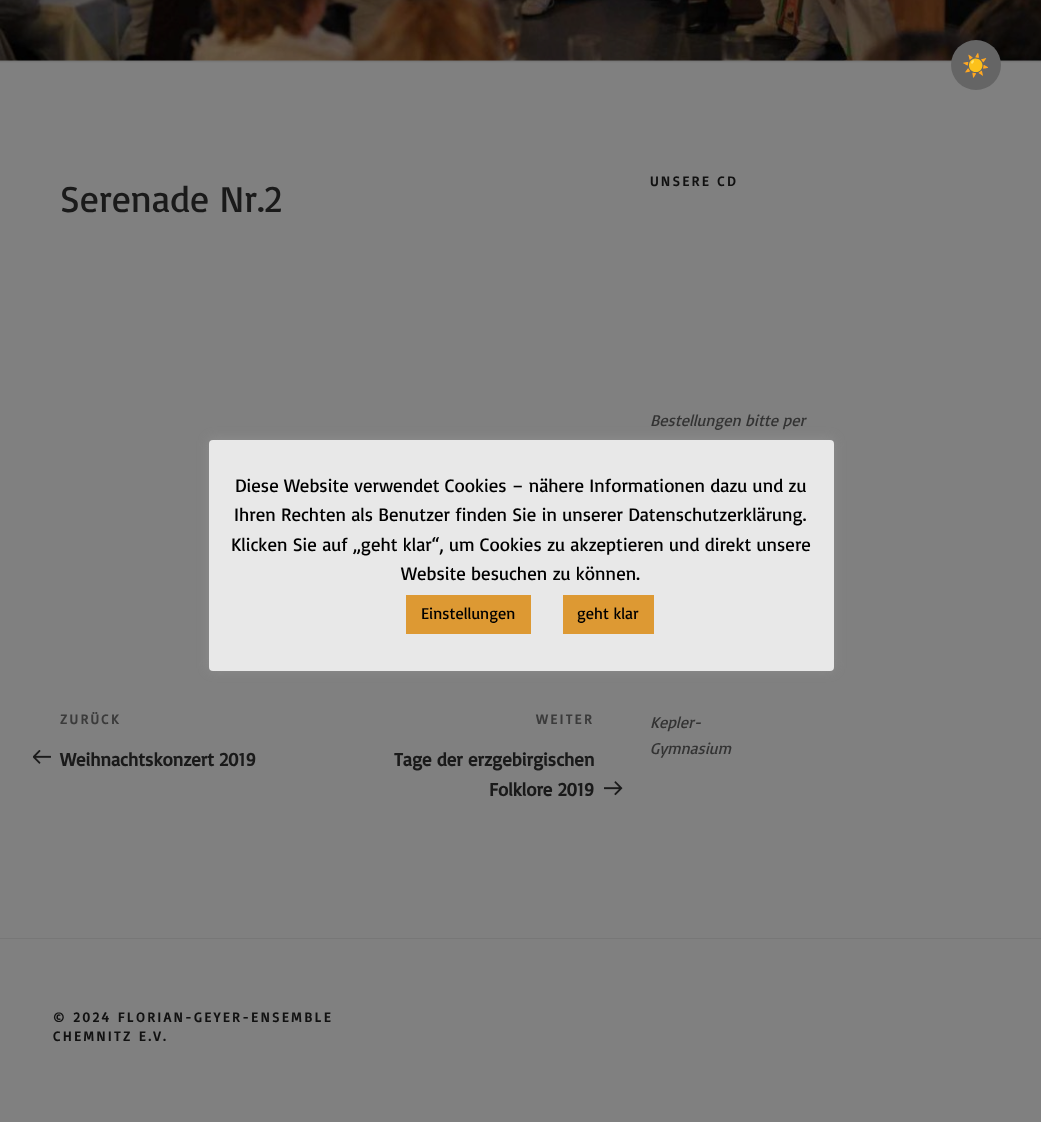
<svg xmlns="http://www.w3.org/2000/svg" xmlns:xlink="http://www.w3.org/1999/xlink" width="1041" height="1122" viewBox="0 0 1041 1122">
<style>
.cls-1{font:bold 22px Noto Color Emoji;fill:#eeeeee}
.cls-2{font:37.5px Basic;fill:#1a1a1a}
.cls-3{font:bold 13.75px Basic;letter-spacing:2.5px;fill:#3b3b3b}
.cls-4{font:bold 18.75px Basic;fill:#1a1a1a}
.cls-5{font:bold 13.75px Basic;letter-spacing:2.5px;fill:#111111}
.cls-6{font:italic 16.25px Basic;fill:#333333}
.cls-7{font:18.75px Basic;fill:#000000}
.cls-8{font:16.25px Basic;fill:#000000}
</style>
<rect width="100%" height="100%" fill="#808080"/>
<rect fill="#7d7d7d" x="0" y="60" width="1041" height="3"/>
<rect fill="#777777" x="0" y="61" width="1041" height="1"/>
<image xlink:href="image0.png" x="0" y="0" width="1041" height="61"/>
<circle fill="#656565" cx="976" cy="65" r="25"/>
<image xlink:href="image1.png" x="33" y="750" width="18" height="14"/>
<image xlink:href="image2.png" x="604" y="781" width="19" height="15"/>
<rect fill="#777777" x="0" y="938" width="1041" height="1"/>
<rect fill="#acabab" fill-opacity="0.3" filter="blur(6px)" x="209" y="439" width="625" height="231" rx="4"/>
<rect fill="#e8e8e8" x="209" y="440" width="625" height="231" rx="4"/>
<rect fill="#dd9933" x="406" y="595" width="125" height="39"/>
<rect fill="#dd9933" x="563" y="595" width="91" height="39"/>
<text class="cls-1" x="962" y="73">☀️</text>
<text class="cls-2" x="60" y="212">Serenade Nr.2</text>
<text class="cls-3" x="60" y="724">ZURÜCK</text>
<text class="cls-4" x="60" y="766">Weihnachtskonzert 2019</text>
<text class="cls-3" x="536" y="724">WEITER</text>
<text class="cls-4" x="394" y="766">Tage der erzgebirgischen</text>
<text class="cls-4" x="489" y="796">Folklore 2019</text>
<text class="cls-5" x="650" y="186">UNSERE CD</text>
<text class="cls-6" x="650" y="426">Bestellungen bitte per</text>
<text class="cls-6"><tspan x="650" y="728">Kepler-</tspan><tspan x="650" y="754">Gymnasium</tspan></text>
<text class="cls-5"><tspan x="53" y="1022">© 2024 FLORIAN-GEYER-ENSEMBLE</tspan><tspan x="53" y="1041">CHEMNITZ E.V.</tspan></text>
<text class="cls-7" x="235" y="492">Diese Website verwendet Cookies – nähere Informationen dazu und zu</text>
<text class="cls-7" x="234" y="521">Ihren Rechten als Benutzer finden Sie in unserer Datenschutzerklärung.</text>
<text class="cls-7" x="231" y="551">Klicken Sie auf „geht klar“, um Cookies zu akzeptieren und direkt unsere</text>
<text class="cls-7" x="401" y="580">Website besuchen zu können.</text>
<text class="cls-8" x="421" y="619">Einstellungen</text>
<text class="cls-8" x="577" y="619">geht klar</text>
</svg>
